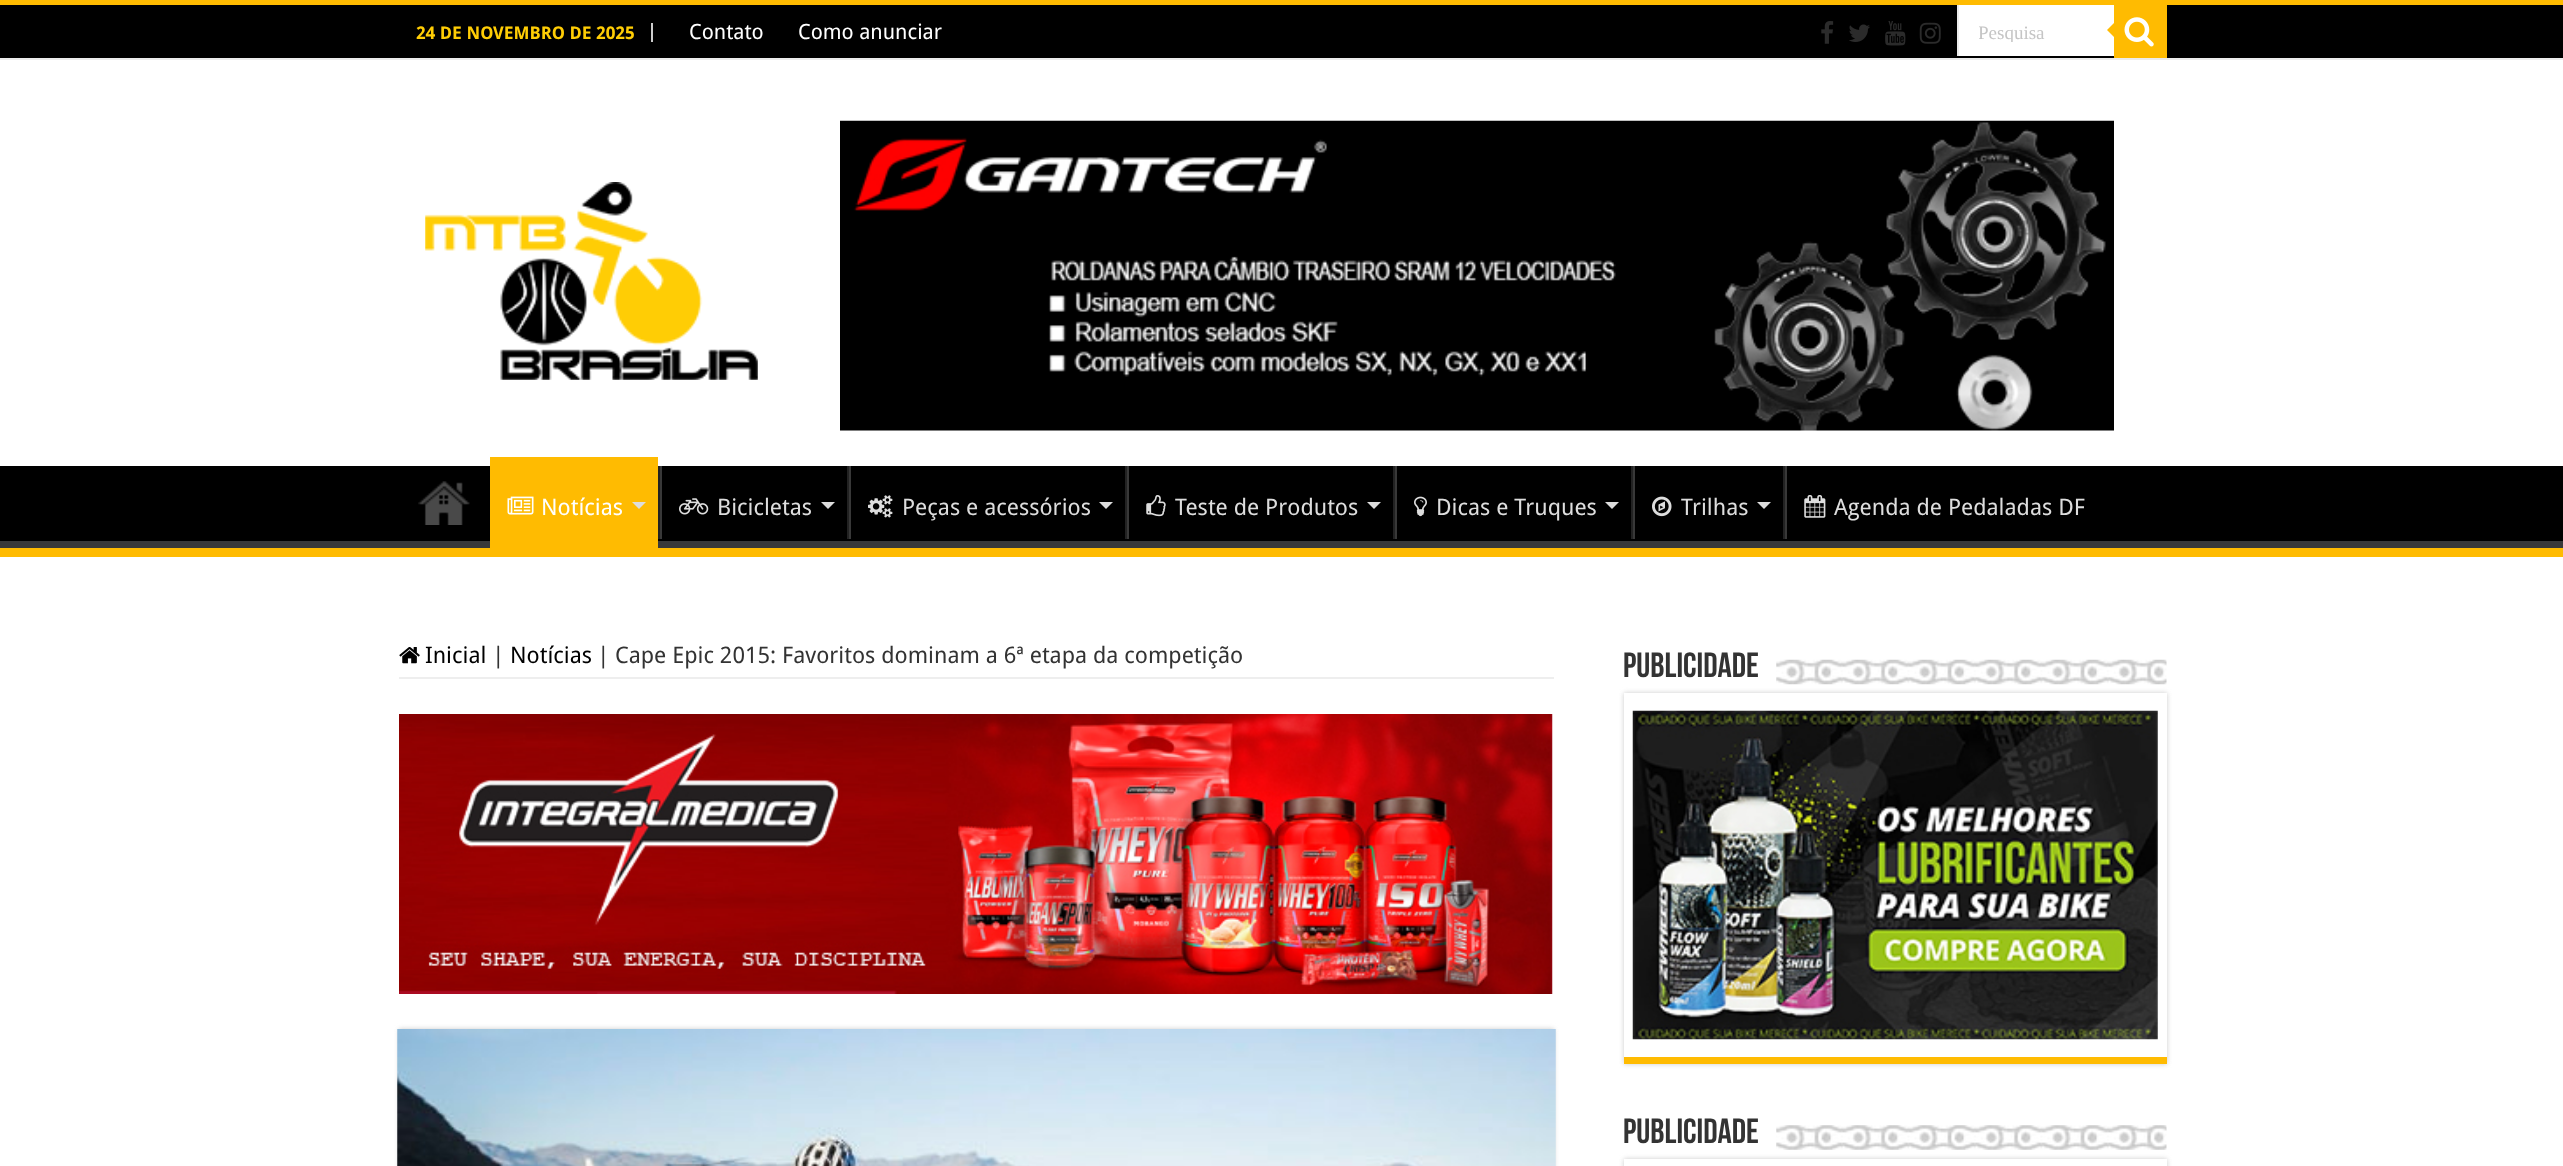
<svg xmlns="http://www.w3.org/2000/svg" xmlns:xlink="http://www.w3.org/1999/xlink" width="2563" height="1166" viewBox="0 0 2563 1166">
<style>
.cls-1{font:bold 17.5px Droid Sans;fill:#ffcd05}
.cls-2{font:21px Droid Sans;fill:#ffffff}
.cls-3{font:19px Liberation Serif;fill:#c5c5c5}
.cls-4{font:22.75px Droid Sans;fill:#ffffff}
.cls-5{font:22.75px Droid Sans;fill:#dddddd}
.cls-6{font:22.75px Droid Sans;fill:#000000}
.cls-7{font:22.75px Droid Sans;fill:#333333}
.cls-8{font:bold 35px Bebas Neue;fill:#333333}
</style>
<defs>
<clipPath id="clip1"><rect x="0" y="466" width="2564" height="82"/></clipPath>
<clipPath id="clip2"><rect x="1979" y="21" width="114" height="21"/></clipPath>
</defs>
<rect width="100%" height="100%" fill="#ffffff"/>
<rect fill="#ffbb01" x="0" y="0" width="2563" height="5"/>
<rect fill="#000000" x="0" y="5" width="2563" height="53"/>
<rect fill="#ececec" x="0" y="58" width="2563" height="2"/>
<rect fill="#cccccc" x="651" y="23" width="2" height="19"/>
<image xlink:href="image0.png" x="1821" y="21" width="13" height="23"/>
<image xlink:href="image1.png" x="1849" y="24" width="21" height="18"/>
<image xlink:href="image2.png" x="1885" y="21" width="21" height="25"/>
<image xlink:href="image3.png" x="1919" y="22" width="22" height="22"/>
<rect fill="#ffffff" x="1959" y="5" width="155" height="51"/>
<rect fill="#ececec" x="1957" y="5" width="2" height="51"/>
<rect fill="#ffbb01" x="2114" y="5" width="53" height="53"/>
<image xlink:href="image4.png" x="2124" y="17" width="30" height="30"/>
<path fill="#ffbb01" d="M2114 23V37L2107 30Z"/>
<image xlink:href="image5.png" x="425" y="182" width="333" height="198"/>
<image xlink:href="image6.png" x="840" y="120" width="1274" height="311"/>
<rect fill="#000000" x="0" y="466" width="2563" height="75"/>
<g clip-path="url(#clip1)">
<path fill="#393939" fill-rule="evenodd" d="M-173 292H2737V721H-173ZM-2 455H2562C2563 455 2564 456 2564 457V539C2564 540 2563 541 2562 541H-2C-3 541-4 540-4 539V457C-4 456-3 455-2 455Z"/>
</g>
<rect fill="#ffbb01" x="0" y="548" width="2563" height="9"/>
<image xlink:href="image7.png" x="418" y="481" width="52" height="44"/>
<rect fill="#ffbb01" x="490" y="457" width="168" height="91"/>
<image xlink:href="image8.png" x="507" y="496" width="27" height="19"/>
<path fill="#dddddd" d="M632 502H646L639 509Z"/>
<rect fill="#222222" x="658" y="466" width="2" height="73"/>
<rect fill="#383838" x="660" y="466" width="2" height="73"/>
<image xlink:href="image9.png" x="679" y="498" width="30" height="17"/>
<path fill="#dddddd" d="M821 502H835L828 509Z"/>
<rect fill="#222222" x="847" y="466" width="2" height="73"/>
<rect fill="#383838" x="849" y="466" width="2" height="73"/>
<image xlink:href="image10.png" x="868" y="495" width="25" height="23"/>
<path fill="#dddddd" d="M1099 502H1113L1106 509Z"/>
<rect fill="#222222" x="1125" y="466" width="2" height="73"/>
<rect fill="#383838" x="1127" y="466" width="2" height="73"/>
<image xlink:href="image11.png" x="1146" y="495" width="20" height="22"/>
<path fill="#dddddd" d="M1367 502H1381L1374 509Z"/>
<rect fill="#222222" x="1393" y="466" width="2" height="73"/>
<rect fill="#383838" x="1395" y="466" width="2" height="73"/>
<image xlink:href="image12.png" x="1414" y="496" width="13" height="21"/>
<path fill="#dddddd" d="M1605 502H1619L1612 509Z"/>
<rect fill="#222222" x="1631" y="466" width="2" height="73"/>
<rect fill="#383838" x="1633" y="466" width="2" height="73"/>
<image xlink:href="image13.png" x="1652" y="496" width="20" height="21"/>
<path fill="#dddddd" d="M1757 502H1771L1764 509Z"/>
<rect fill="#222222" x="1783" y="466" width="2" height="73"/>
<rect fill="#383838" x="1785" y="466" width="2" height="73"/>
<image xlink:href="image14.png" x="1804" y="495" width="22" height="23"/>
<rect fill="#eeeeee" x="399" y="677" width="1155" height="2"/>
<image xlink:href="image15.png" x="399" y="647" width="21" height="17"/>
<image xlink:href="image16.png" x="399" y="714" width="1154" height="280"/>
<rect fill="#cacaca" filter="blur(2.5px)" x="399" y="1029" width="1155" height="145"/>
<image xlink:href="image17.png" x="397" y="1029" width="1159" height="137"/>
<rect fill="#cacaca" filter="blur(2.5px)" x="1624" y="693" width="543" height="371"/>
<image xlink:href="image18.png" x="1776" y="659" width="391" height="26"/>
<rect fill="#ffffff" x="1624" y="693" width="543" height="364"/>
<rect fill="#ffbb01" x="1624" y="1057" width="543" height="7"/>
<image xlink:href="image19.png" x="1632" y="710" width="526" height="330"/>
<image xlink:href="image20.png" x="1776" y="1125" width="391" height="25"/>
<rect fill="#cacaca" filter="blur(2.5px)" x="1624" y="1159" width="543" height="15"/>
<rect fill="#ffffff" x="1624" y="1159" width="543" height="7"/>
<text class="cls-1" x="416" y="39">24 DE NOVEMBRO DE 2025</text>
<text class="cls-2" x="689" y="39">Contato</text>
<text class="cls-2" x="798" y="39">Como anunciar</text>
<g clip-path="url(#clip2)">
<text class="cls-3" x="1978" y="39">Pesquisa</text>
</g>
<text class="cls-4" x="541" y="515">Notícias</text>
<text class="cls-5" x="717" y="515">Bicicletas</text>
<text class="cls-5" x="902" y="515">Peças e acessórios</text>
<text class="cls-5" x="1175" y="515">Teste de Produtos</text>
<text class="cls-5" x="1436" y="515">Dicas e Truques</text>
<text class="cls-5" x="1681" y="515">Trilhas</text>
<text class="cls-5" x="1834" y="515">Agenda de Pedaladas DF</text>
<text class="cls-6" x="425" y="663">Inicial</text>
<text class="cls-7" x="492" y="663">|</text>
<text class="cls-6" x="510" y="663">Notícias</text>
<text class="cls-7" x="597" y="663">|</text>
<text class="cls-7" x="615" y="663">Cape Epic 2015: Favoritos dominam a 6ª etapa da competição</text>
<text class="cls-8" x="1623" y="677">Publicidade</text>
<text class="cls-8" x="1623" y="1143">Publicidade</text>
</svg>
